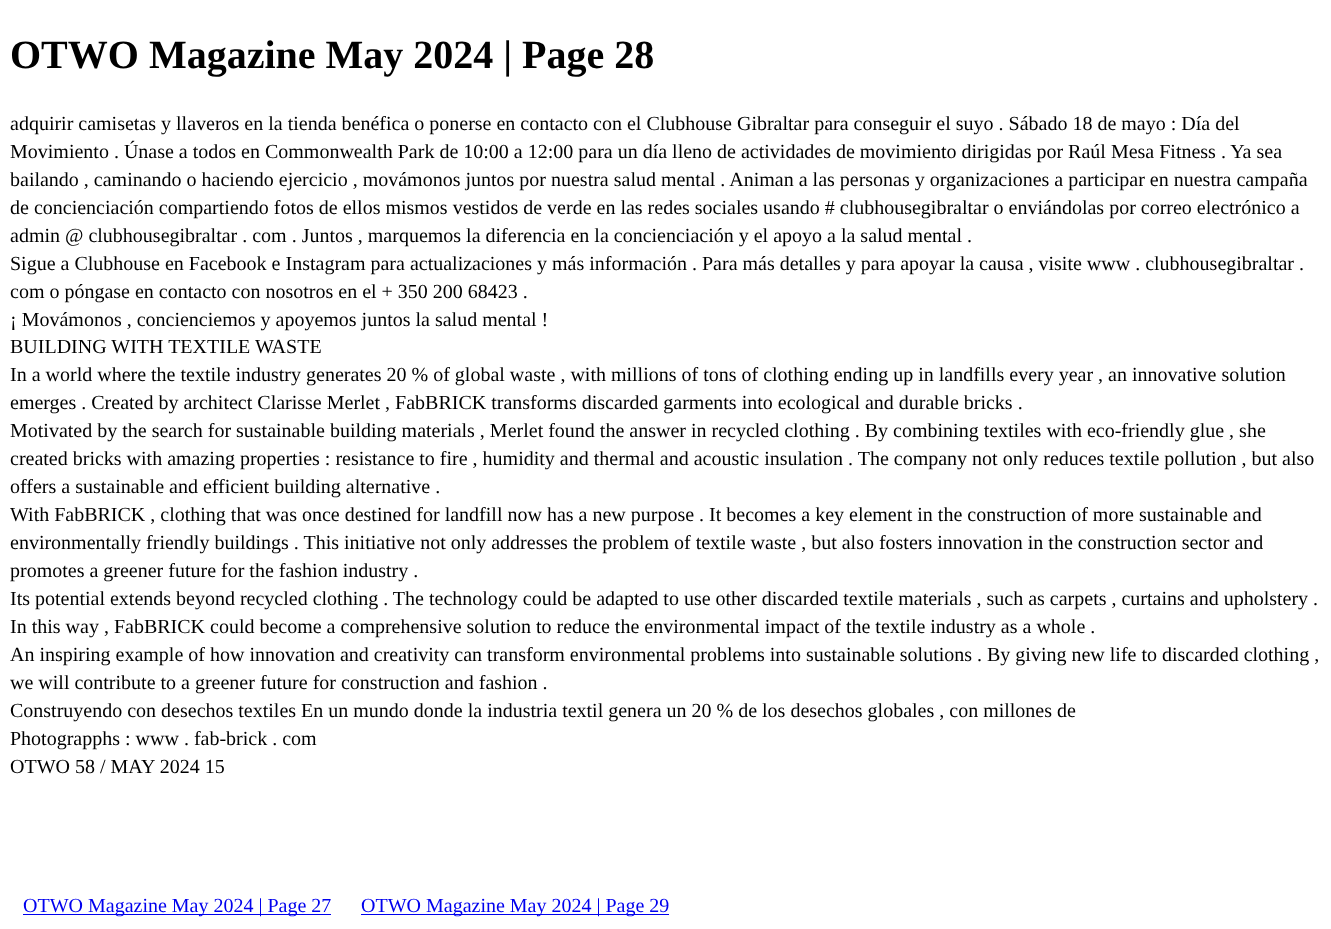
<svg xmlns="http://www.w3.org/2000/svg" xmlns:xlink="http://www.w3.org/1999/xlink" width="1331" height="929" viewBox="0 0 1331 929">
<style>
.cls-1{font:bold 40px Liberation Serif;fill:#000000}
.cls-2{font:20px Liberation Serif;fill:#000000}
.cls-3{font:20px Liberation Serif;fill:#0000ee}
</style>
<rect width="100%" height="100%" fill="#ffffff"/>
<rect fill="#0000ee" x="23" y="914" width="308" height="1"/>
<rect fill="#0000ee" x="361" y="914" width="308" height="1"/>
<text class="cls-1" x="10" y="68">OTWO Magazine May 2024 | Page 28</text>
<text class="cls-2"><tspan x="10" y="130">adquirir camisetas y llaveros en la tienda benéfica o ponerse en contacto con el Clubhouse Gibraltar para conseguir el suyo . Sábado 18 de mayo : Día del</tspan><tspan x="10" y="158">Movimiento . Únase a todos en Commonwealth Park de 10:00 a 12:00 para un día lleno de actividades de movimiento dirigidas por Raúl Mesa Fitness . Ya sea</tspan><tspan x="10" y="186">bailando , caminando o haciendo ejercicio , movámonos juntos por nuestra salud mental . Animan a las personas y organizaciones a participar en nuestra campaña</tspan><tspan x="10" y="214">de concienciación compartiendo fotos de ellos mismos vestidos de verde en las redes sociales usando # clubhousegibraltar o enviándolas por correo electrónico a</tspan><tspan x="10" y="242">admin @ clubhousegibraltar . com . Juntos , marquemos la diferencia en la concienciación y el apoyo a la salud mental .</tspan><tspan x="10" y="270">Sigue a Clubhouse en Facebook e Instagram para actualizaciones y más información . Para más detalles y para apoyar la causa , visite www . clubhousegibraltar .</tspan><tspan x="10" y="298">com o póngase en contacto con nosotros en el + 350 200 68423 .</tspan><tspan x="10" y="326">¡ Movámonos , concienciemos y apoyemos juntos la salud mental !</tspan><tspan x="10" y="353">BUILDING WITH TEXTILE WASTE</tspan><tspan x="10" y="381">In a world where the textile industry generates 20 % of global waste , with millions of tons of clothing ending up in landfills every year , an innovative solution</tspan><tspan x="10" y="409">emerges . Created by architect Clarisse Merlet , FabBRICK transforms discarded garments into ecological and durable bricks .</tspan><tspan x="10" y="437">Motivated by the search for sustainable building materials , Merlet found the answer in recycled clothing . By combining textiles with eco-friendly glue , she</tspan><tspan x="10" y="465">created bricks with amazing properties : resistance to fire , humidity and thermal and acoustic insulation . The company not only reduces textile pollution , but also</tspan><tspan x="10" y="493">offers a sustainable and efficient building alternative .</tspan><tspan x="10" y="521">With FabBRICK , clothing that was once destined for landfill now has a new purpose . It becomes a key element in the construction of more sustainable and</tspan><tspan x="10" y="549">environmentally friendly buildings . This initiative not only addresses the problem of textile waste , but also fosters innovation in the construction sector and</tspan><tspan x="10" y="577">promotes a greener future for the fashion industry .</tspan><tspan x="10" y="605">Its potential extends beyond recycled clothing . The technology could be adapted to use other discarded textile materials , such as carpets , curtains and upholstery .</tspan><tspan x="10" y="633">In this way , FabBRICK could become a comprehensive solution to reduce the environmental impact of the textile industry as a whole .</tspan><tspan x="10" y="661">An inspiring example of how innovation and creativity can transform environmental problems into sustainable solutions . By giving new life to discarded clothing ,</tspan><tspan x="10" y="689">we will contribute to a greener future for construction and fashion .</tspan><tspan x="10" y="717">Construyendo con desechos textiles En un mundo donde la industria textil genera un 20 % de los desechos globales , con millones de</tspan><tspan x="10" y="745">Photograpphs : www . fab-brick . com</tspan><tspan x="10" y="773">OTWO 58 / MAY 2024 15</tspan></text>
<text class="cls-3" x="23" y="912">OTWO Magazine May 2024 | Page 27</text>
<text class="cls-3" x="361" y="912">OTWO Magazine May 2024 | Page 29</text>
</svg>
